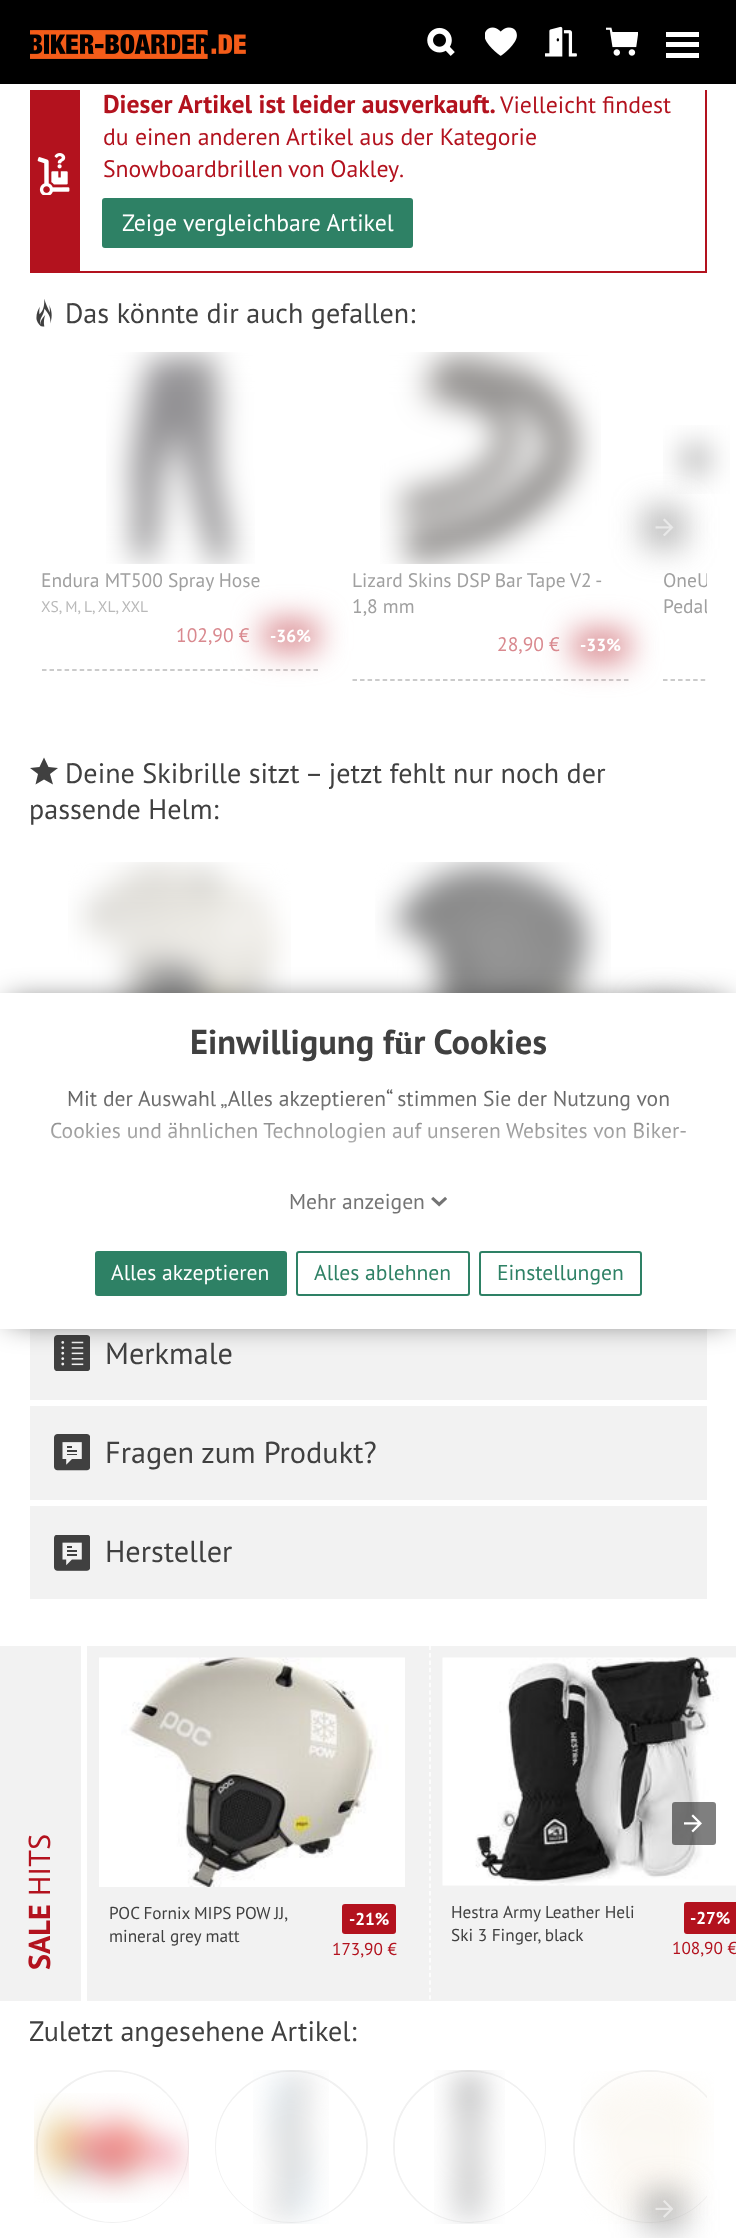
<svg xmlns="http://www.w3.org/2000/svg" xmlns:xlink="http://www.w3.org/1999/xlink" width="736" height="2238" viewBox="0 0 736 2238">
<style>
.cls-1{font:bold 25.7px PT Sans;fill:#b3121e}
.cls-2{font:23.75px PT Sans;fill:#b3121e}
.cls-3{font:23.75px PT Sans;fill:#ffffff}
.cls-4{font:28.1px PT Sans;fill:#404040}
.cls-5{font:19.5px PT Sans;fill:#a0a0a0}
.cls-6{font:15.5px PT Sans;fill:#b9b9b9}
.cls-7{font:19.5px PT Sans;fill:#d9898f}
.cls-8{font:bold 17.5px PT Sans;fill:#ffffff}
.cls-9{font:30.25px PT Sans;fill:#404040}
.cls-10{font:30.25px PT Sans;fill:#b3121e}
.cls-11{font:bold 30.25px PT Sans;fill:#b3121e}
.cls-12{font:17.25px PT Sans;fill:#404040}
.cls-13{font:bold 17.25px PT Sans;fill:#ffffff}
.cls-14{font:17.25px PT Sans;fill:#b3121e}
.cls-15{font:bold 34.5px PT Sans;fill:#404040}
.cls-16{font:21.6px PT Sans;fill:#404040}
.cls-17{font:21.6px PT Sans;fill:#747474}
.cls-18{font:21.6px PT Sans;fill:#ffffff}
.cls-19{font:21.6px PT Sans;fill:#2e8165}
</style>
<defs>
<clipPath id="clip1"><rect x="30" y="344" width="677" height="367"/></clipPath>
<clipPath id="clip2"><rect x="30" y="2061" width="677" height="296"/></clipPath>
<linearGradient id="g1" gradientUnits="userSpaceOnUse" x1="368" y1="1190" x2="368" y2="1061"><stop offset="0" stop-color="#ffffff"/><stop offset="0.9" stop-color="#ffffff" stop-opacity="0"/></linearGradient>
</defs>
<rect width="100%" height="100%" fill="#ffffff"/>
<rect fill="none" stroke="#b3121e" stroke-width="2" x="31" y="76" width="675" height="196"/>
<rect fill="#000000" x="0" y="0" width="736" height="84"/>
<rect fill="#ffffff" x="30" y="84" width="677" height="6"/>
<image xlink:href="image0.png" x="30" y="30" width="216" height="29"/>
<image xlink:href="image1.png" x="427" y="27" width="28" height="29"/>
<image xlink:href="image2.png" x="485" y="27" width="32" height="29"/>
<image xlink:href="image3.png" x="545" y="26" width="32" height="31"/>
<image xlink:href="image4.png" x="606" y="27" width="32" height="29"/>
<rect fill="#ffffff" x="666" y="32" width="33" height="5"/>
<rect fill="#ffffff" x="666" y="42" width="33" height="5"/>
<rect fill="#ffffff" x="666" y="53" width="33" height="5"/>
<rect fill="#b3121e" x="32" y="90" width="48" height="181"/>
<image xlink:href="image5.png" x="37" y="153" width="33" height="42"/>
<rect fill="#2e8165" x="102" y="198" width="311" height="50" rx="3"/>
<image xlink:href="image6.png" x="36" y="299" width="16" height="28"/>
<image xlink:href="image9.png" x="380" y="352" width="221" height="212"/>
<image xlink:href="image10.png" x="663" y="425" width="67" height="69"/>
<rect fill="#808080" fill-opacity="0.5" filter="blur(15px)" x="642" y="506" width="44" height="43" rx="3"/>
<image xlink:href="image7.png" x="655" y="518" width="19" height="18"/>
<image xlink:href="image8.png" x="106" y="352" width="149" height="212"/>
<path fill="none" stroke="#bababa" stroke-width="1.5" stroke-dasharray="4.5 3.04" d="M42 670H318"/>
<rect fill="#d9898f" filter="blur(15px)" x="263" y="620" width="55" height="31" rx="3"/>
<path fill="none" stroke="#bababa" stroke-width="1.5" stroke-dasharray="4.5 3.04" d="M352.5 680H628.5"/>
<rect fill="#d9898f" filter="blur(15px)" x="573" y="630" width="56" height="32" rx="3"/>
<g clip-path="url(#clip1)">
<path fill="none" stroke="#bababa" stroke-width="1.5" stroke-dasharray="4.5 3.04" d="M663 680H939"/>
</g>
<path fill="#404040" d="M44 757.5L48.5 767L58 768L50 774L53 784.5L44 779.5L35.5 784.5L38 774L30 768L39.5 767"/>
<image xlink:href="image11.png" x="68" y="862" width="223" height="131"/>
<image xlink:href="image12.png" x="375" y="862" width="236" height="131"/>
<rect fill="#808080" fill-opacity="0.5" filter="blur(15px)" x="642" y="1001" width="44" height="43" rx="3"/>
<rect fill="#f2f2f2" x="30" y="1329" width="677" height="71"/>
<image xlink:href="image13.png" x="54" y="1335" width="36" height="36"/>
<rect fill="#f2f2f2" x="30" y="1406" width="677" height="94"/>
<image xlink:href="image14.png" x="54" y="1434" width="36" height="37"/>
<rect fill="#f2f2f2" x="30" y="1506" width="677" height="93"/>
<image xlink:href="image15.png" x="54" y="1535" width="36" height="36"/>
<rect fill="#f2f2f2" x="0" y="1646" width="81" height="355"/>
<rect fill="#f2f2f2" x="87" y="1646" width="649" height="355"/>
<image xlink:href="image18.png" x="442" y="1657" width="294" height="229"/>
<rect fill="#000000" fill-opacity="0.5" x="672" y="1802" width="44" height="43" rx="3"/>
<image xlink:href="image16.png" x="684" y="1814" width="18" height="19"/>
<image xlink:href="image17.png" x="99" y="1657" width="306" height="230"/>
<rect fill="#b3121e" x="342" y="1904" width="54" height="30" rx="3"/>
<path fill="none" stroke="#ffffff" stroke-width="1.5" stroke-dasharray="4.5 2.94" d="M430 1645.5V1999.5"/>
<rect fill="#b3121e" x="684" y="1902" width="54" height="32" rx="3"/>
<circle fill="none" stroke="#f1f1f1" stroke-width="2" cx="112.5" cy="2146.5" r="75.5"/>
<circle fill="none" stroke="#ffffff" stroke-width="5" cx="113" cy="2147" r="72.5"/>
<image xlink:href="image19.png" x="34" y="2093" width="155" height="110"/>
<circle fill="none" stroke="#f1f1f1" stroke-width="2" cx="291.5" cy="2146.5" r="75.5"/>
<circle fill="none" stroke="#ffffff" stroke-width="5" cx="291" cy="2147" r="72.5"/>
<image xlink:href="image20.png" x="253" y="2070" width="76" height="154"/>
<circle fill="none" stroke="#f1f1f1" stroke-width="2" cx="469.5" cy="2146.5" r="75.5"/>
<circle fill="none" stroke="#ffffff" stroke-width="5" cx="470" cy="2147" r="72.5"/>
<image xlink:href="image21.png" x="434" y="2070" width="71" height="154"/>
<g clip-path="url(#clip2)">
<circle fill="none" stroke="#f1f1f1" stroke-width="2" cx="649.5" cy="2146.5" r="75.5"/>
<circle fill="none" stroke="#ffffff" stroke-width="5" cx="650" cy="2147" r="72.5"/>
</g>
<image xlink:href="image22.png" x="581" y="2071" width="133" height="153"/>
<rect fill="#808080" fill-opacity="0.5" filter="blur(15px)" x="642" y="2189" width="44" height="43" rx="3"/>
<image xlink:href="image23.png" x="655" y="2200" width="18" height="18"/>
<rect fill="#000000" fill-opacity="0.66" filter="blur(15px)" x="9" y="1002" width="719" height="318"/>
<rect fill="#ffffff" x="0" y="993" width="736" height="336"/>
<image xlink:href="image24.png" x="431" y="1196" width="16" height="11"/>
<rect fill="#2e8165" x="95" y="1251" width="192" height="45" rx="3"/>
<rect fill="none" stroke="#2e8165" stroke-width="2" x="297" y="1252" width="172" height="43" rx="2"/>
<rect fill="none" stroke="#2e8165" stroke-width="2" x="480" y="1252" width="161" height="43" rx="2"/>
<text class="cls-1" x="103" y="113">Dieser Artikel ist leider ausverkauft.</text>
<text class="cls-2" x="500" y="113">Vielleicht findest</text>
<text class="cls-2"><tspan x="103" y="145">du einen anderen Artikel aus der Kategorie</tspan><tspan x="103" y="177" word-spacing="-1">Snowboardbrillen von Oakley</tspan></text>
<text class="cls-2" x="399" y="177">.</text>
<text class="cls-3" x="122" y="231">Zeige vergleichbare Artikel</text>
<text class="cls-4" x="65" y="323">Das könnte dir auch gefallen:</text>
<text class="cls-5" x="41" y="587">Endura MT500 Spray Hose</text>
<text class="cls-6" x="41" y="612">XS, M, L, XL, XXL</text>
<text class="cls-7" x="176" y="642">102,90 €</text>
<text class="cls-8" x="270" y="642">-36%</text>
<text class="cls-5"><tspan x="352" y="587" word-spacing="-0.25">Lizard Skins DSP Bar Tape V2 -</tspan><tspan x="352" y="613">1,8 mm</tspan></text>
<text class="cls-7" x="497" y="651">28,90 €</text>
<text class="cls-8" x="580" y="651">-33%</text>
<g clip-path="url(#clip1)">
<text class="cls-5"><tspan x="663" y="587">OneU</tspan><tspan x="663" y="613">Pedal</tspan></text>
</g>
<text class="cls-4" x="65" y="783">Deine Skibrille sitzt – jetzt fehlt nur noch der</text>
<text class="cls-4" x="29" y="819">passende Helm:</text>
<text class="cls-9" x="105" y="1364">Merkmale</text>
<text class="cls-9" x="105" y="1463">Fragen zum Produkt?</text>
<text class="cls-9" x="105" y="1562">Hersteller</text>
<text class="cls-10" x="50" y="1896" transform="rotate(-90 50 1896)">HITS</text>
<text class="cls-11" x="50" y="1970" transform="rotate(-90 50 1970)">SALE</text>
<text class="cls-12"><tspan x="109" y="1919" word-spacing="-0.5">POC Fornix MIPS POW JJ,</tspan><tspan x="109" y="1942">mineral grey matt</tspan></text>
<text class="cls-13" x="349" y="1925">-21%</text>
<text class="cls-14" x="332" y="1955">173,90 €</text>
<text class="cls-12"><tspan x="451" y="1918">Hestra Army Leather Heli</tspan><tspan x="451" y="1941">Ski 3 Finger, black</tspan></text>
<text class="cls-13" x="690" y="1924">-27%</text>
<text class="cls-14" x="672" y="1954">108,90 €</text>
<text class="cls-4" x="29" y="2041">Zuletzt angesehene Artikel:</text>
<text class="cls-15" x="190" y="1054">Einwilligung für Cookies</text>
<text class="cls-16" x="67" y="1106">Mit der Auswahl „Alles akzeptieren“ stimmen Sie der Nutzung von</text>
<text class="cls-16" x="50" y="1138">Cookies und ähnlichen Technologien auf unseren Websites von Biker-</text>
<rect fill="url(#g1)" x="51" y="1089" width="635" height="54"/>
<text class="cls-17" x="289" y="1209">Mehr anzeigen</text>
<text class="cls-18" x="111" y="1280">Alles akzeptieren</text>
<text class="cls-19" x="314" y="1280">Alles ablehnen</text>
<text class="cls-19" x="497" y="1280">Einstellungen</text>
</svg>
